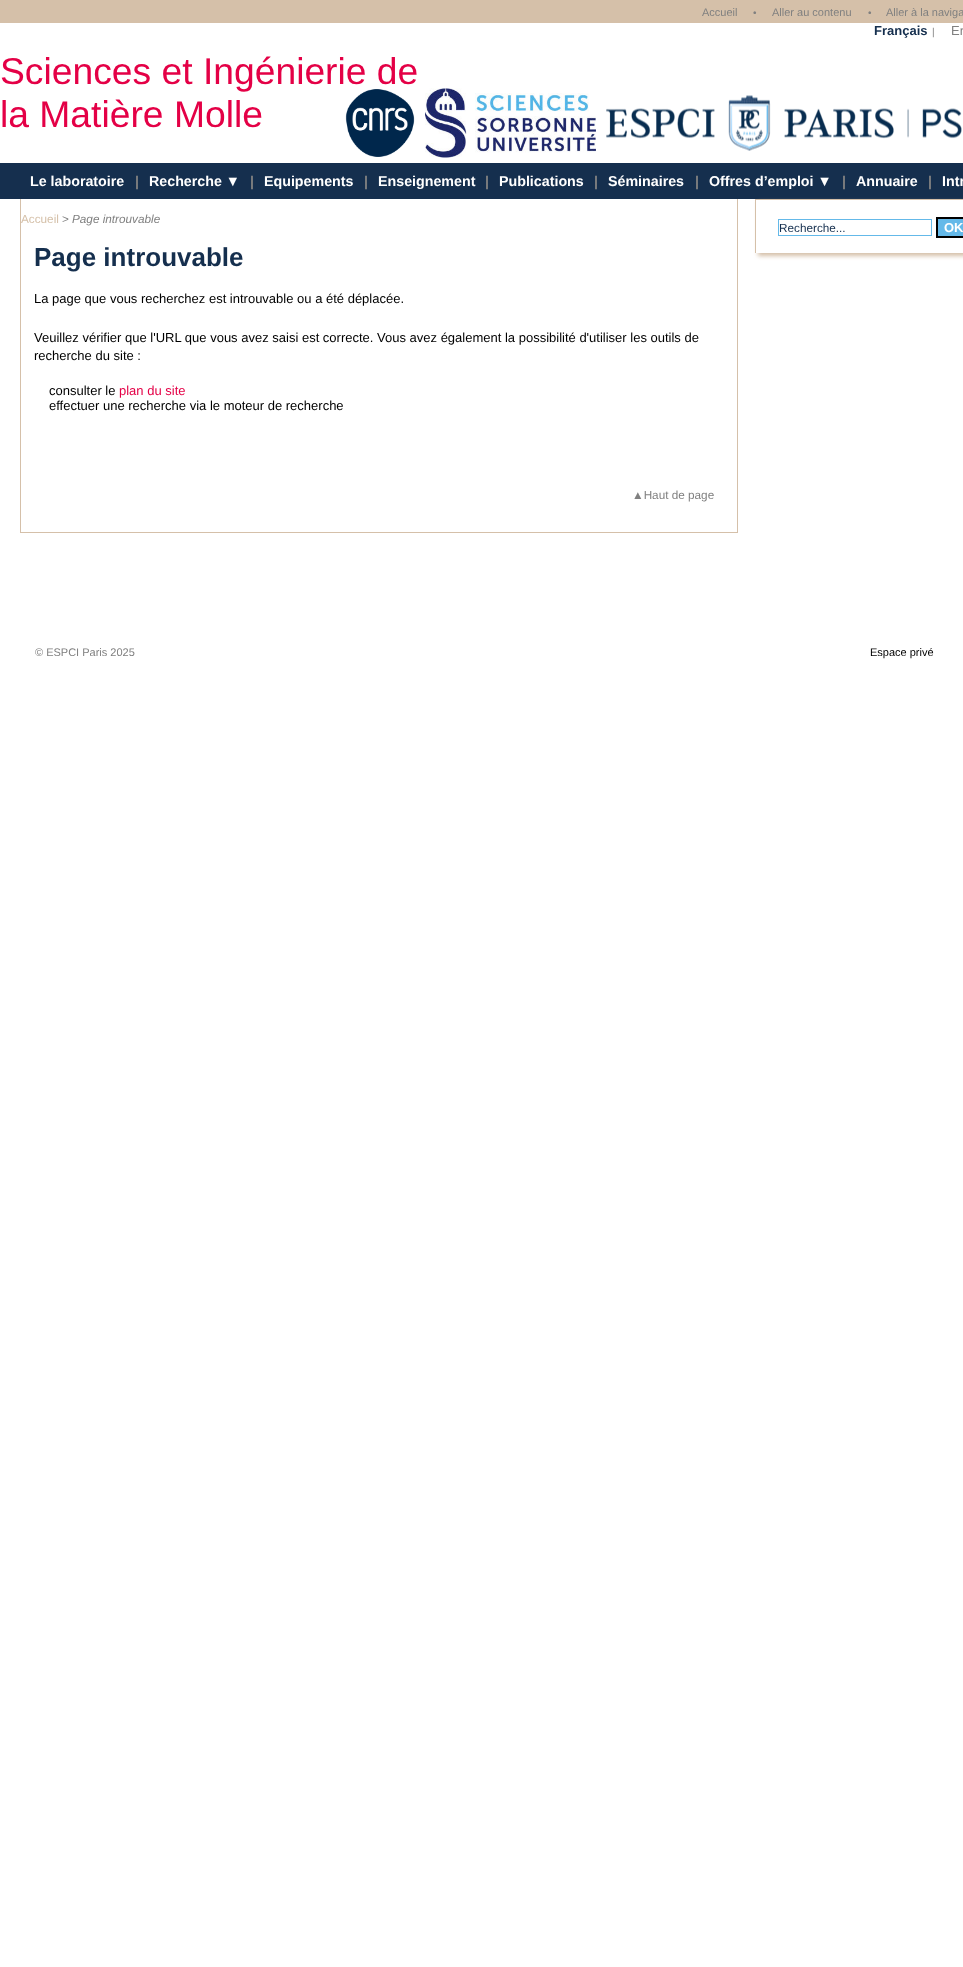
<svg xmlns="http://www.w3.org/2000/svg" xmlns:xlink="http://www.w3.org/1999/xlink" width="963" height="1967" viewBox="0 0 963 1967">
<style>
.cls-1{font:11px Liberation Sans;fill:#808080}
.cls-2{font:10px Liberation Sans;fill:#808080}
.cls-3{font:bold 13px Liberation Sans;fill:#152f4e}
.cls-4{font:13px Liberation Sans;fill:#808080}
.cls-5{font:37.25px Liberation Sans;fill:#e40046}
.cls-6{font:bold 14.25px Liberation Sans;fill:#ffffff}
.cls-7{font:bold 14.25px Liberation Sans;fill:#808080}
.cls-8{font:11.75px Liberation Sans;fill:#d5c0a9}
.cls-9{font:11.75px Liberation Sans;fill:#808080}
.cls-10{font:italic 11.75px Liberation Sans;fill:#808080}
.cls-11{font:bold 26px Liberation Sans;fill:#152f4e}
.cls-12{font:13px Liberation Sans;fill:#000000}
.cls-13{font:13px Liberation Sans;fill:#e40046}
.cls-14{font:11.75px Liberation Sans;fill:#152f4e}
.cls-15{font:bold 13px Liberation Sans;fill:#ffffff}
.cls-16{font:11px Liberation Sans;fill:#000000}
</style>
<defs>
<clipPath id="clip1"><path d="M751 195H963V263H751ZM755 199H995V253H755Z" clip-rule="evenodd"/></clipPath>
</defs>
<rect width="100%" height="100%" fill="#ffffff"/>
<rect fill="#d5c0a9" x="0" y="0" width="963" height="23"/>
<image xlink:href="image1.png" x="425" y="88" width="171" height="70"/>
<image xlink:href="image2.png" x="606" y="95" width="356" height="56"/>
<rect fill="#152f4e" x="0" y="163" width="963" height="36"/>
<rect fill="#d5c0a9" x="737" y="199" width="1" height="334"/>
<rect fill="#d5c0a9" x="20" y="532" width="718" height="1"/>
<rect fill="#d5c0a9" x="20" y="199" width="1" height="334"/>
<g clip-path="url(#clip1)">
<rect fill="#d5c0a9" filter="blur(2px)" x="758" y="202" width="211" height="54"/>
</g>
<rect fill="#d5c0a9" x="755" y="199" width="208" height="1"/>
<rect fill="#d5c0a9" x="755" y="199" width="1" height="54"/>
<rect fill="none" stroke="#64b9e9" x="778.5" y="219.5" width="153" height="16"/>
<rect fill="#64b9e9" stroke="#000000" stroke-width="2" x="937" y="218" width="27" height="19"/>
<text class="cls-1" x="702" y="16">Accueil</text>
<text class="cls-2" x="753" y="16">•</text>
<text class="cls-1" x="772" y="16">Aller au contenu</text>
<text class="cls-2" x="868" y="16">•</text>
<text class="cls-1" x="886" y="16">Aller à la naviga</text>
<text class="cls-3" x="874" y="35">Français</text>
<text class="cls-2" x="932" y="35">|</text>
<text class="cls-4" x="951" y="35">En</text>
<text class="cls-5"><tspan x="0" y="84">Sciences et Ingénierie de</tspan><tspan x="0" y="127">la Matière Molle</tspan></text>
<image xlink:href="image0.png" x="345" y="89" width="70" height="68"/>
<text class="cls-6" x="30" y="186">Le laboratoire</text>
<text class="cls-7" x="135" y="186">|</text>
<text class="cls-6" x="149" y="186">Recherche ▼</text>
<text class="cls-7" x="250" y="186">|</text>
<text class="cls-6" x="264" y="186">Equipements</text>
<text class="cls-7" x="364" y="186">|</text>
<text class="cls-6" x="378" y="186">Enseignement</text>
<text class="cls-7" x="485" y="186">|</text>
<text class="cls-6" x="499" y="186">Publications</text>
<text class="cls-7" x="594" y="186">|</text>
<text class="cls-6" x="608" y="186">Séminaires</text>
<text class="cls-7" x="695" y="186">|</text>
<text class="cls-6" x="709" y="186">Offres d’emploi ▼</text>
<text class="cls-7" x="842" y="186">|</text>
<text class="cls-6" x="856" y="186">Annuaire</text>
<text class="cls-7" x="928" y="186">|</text>
<text class="cls-6" x="942" y="186">Intr</text>
<text class="cls-8" x="21" y="223">Accueil</text>
<text class="cls-9" x="62" y="223">&gt;</text>
<text class="cls-10" x="72" y="223">Page introuvable</text>
<text class="cls-11" x="34" y="266">Page introuvable</text>
<text class="cls-12" x="34" y="303">La page que vous recherchez est introuvable ou a été déplacée.</text>
<text class="cls-12"><tspan x="34" y="342">Veuillez vérifier que l'URL que vous avez saisi est correcte. Vous avez également la possibilité d'utiliser les outils de</tspan><tspan x="34" y="360">recherche du site :</tspan></text>
<text class="cls-12" x="49" y="395">consulter le</text>
<text class="cls-13" x="119" y="395">plan du site</text>
<text class="cls-12" x="49" y="410">effectuer une recherche via le moteur de recherche</text>
<text class="cls-9" x="632" y="499">▲Haut de page</text>
<text class="cls-14" x="779" y="232">Recherche...</text>
<text class="cls-15" x="944" y="232">OK</text>
<text class="cls-1" x="35" y="656">© ESPCI Paris 2025</text>
<text class="cls-16" x="870" y="656">Espace privé</text>
</svg>
